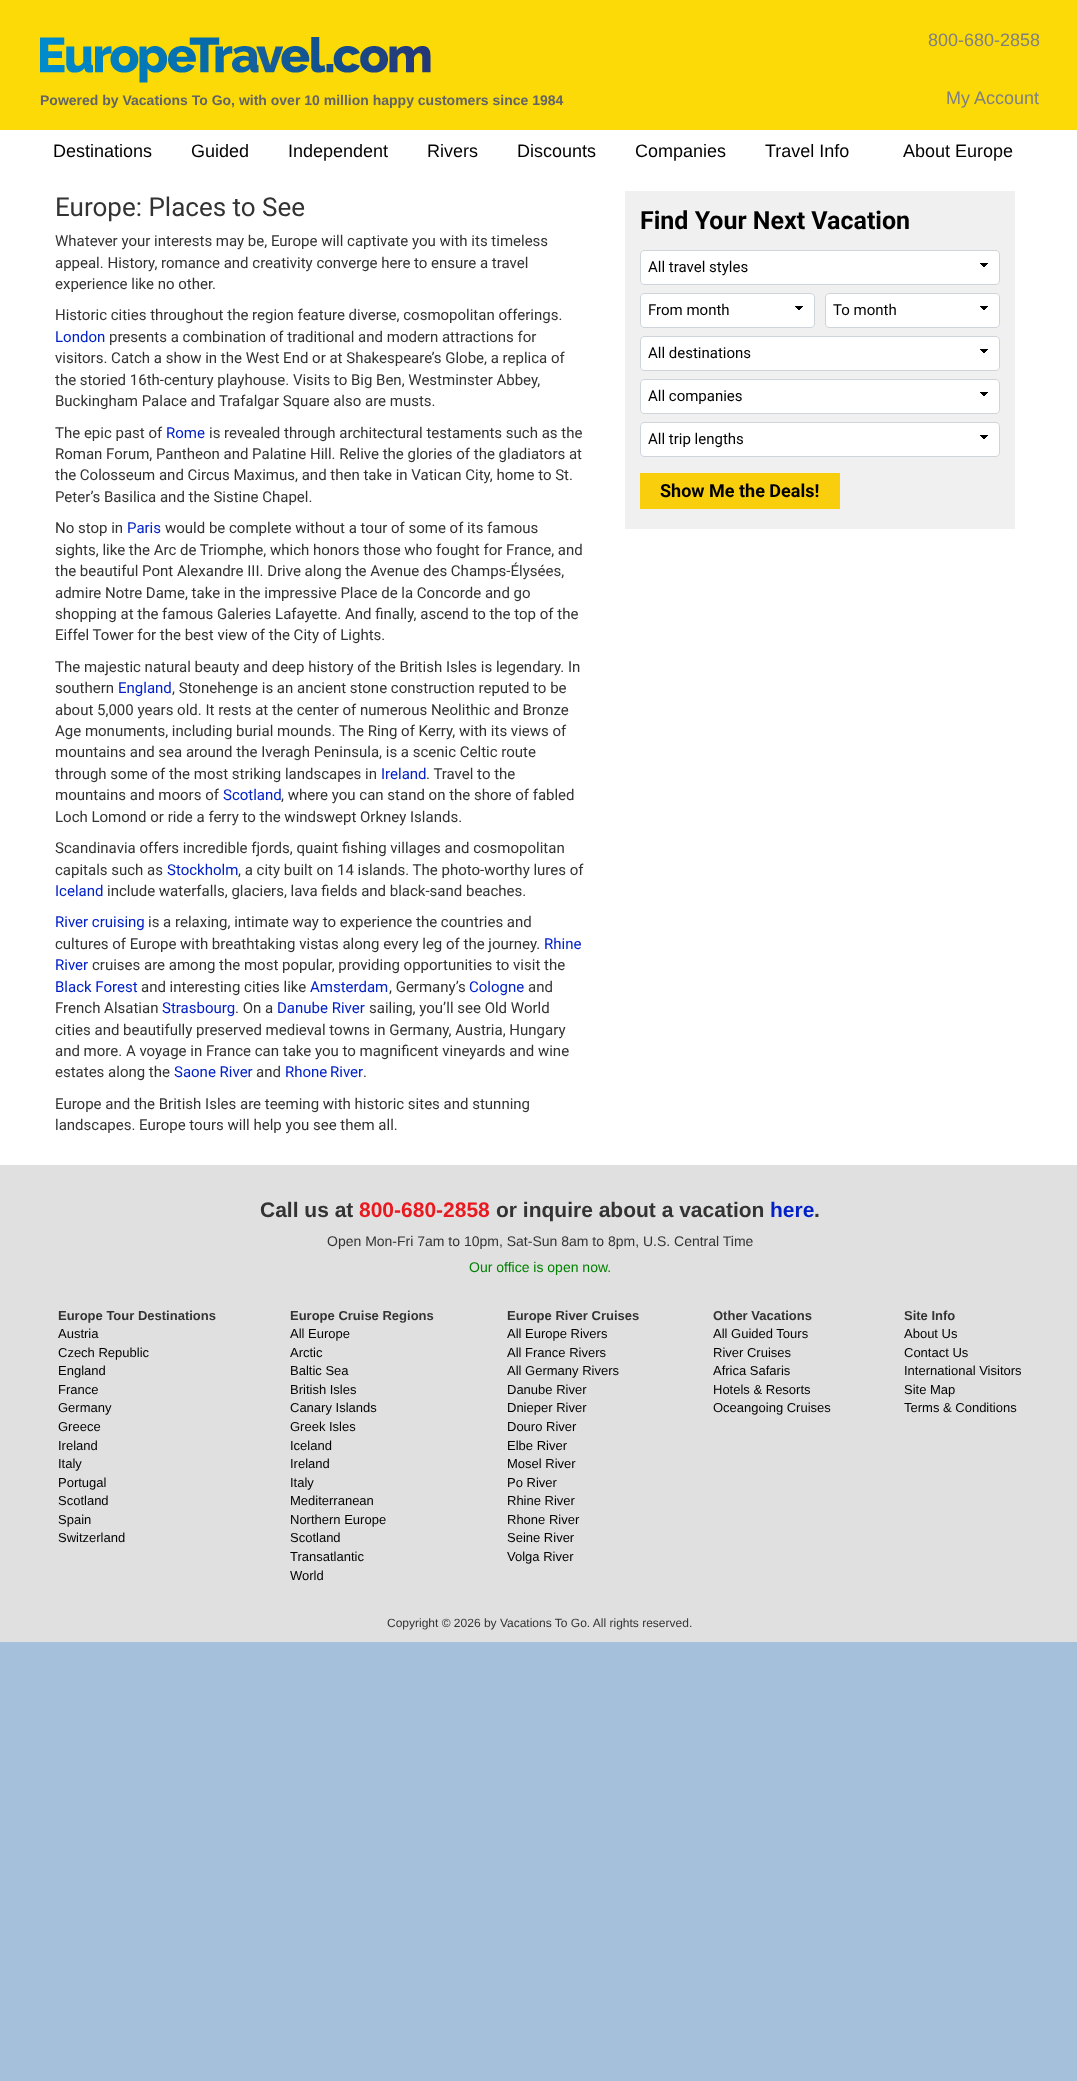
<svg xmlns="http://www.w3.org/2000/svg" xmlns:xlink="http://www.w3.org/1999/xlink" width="1077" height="2081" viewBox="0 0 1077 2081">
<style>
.cls-1{font:bold 14px Liberation Sans;fill:#636466}
.cls-2{font:18px Liberation Sans;fill:#808080}
.cls-3{font:18px Liberation Sans;fill:#000000}
.cls-4{font:26px Roboto;fill:#333333}
.cls-5{font:15px Roboto;fill:#333333}
.cls-6{font:15px Roboto;fill:#0220c7}
.cls-7{font:bold 25px Roboto;fill:#000000}
.cls-8{font:15px Roboto;fill:#000000}
.cls-9{font:bold 18px Roboto;fill:#000000}
.cls-10{font:bold 21px Liberation Sans;fill:#333333}
.cls-11{font:bold 21px Liberation Sans;fill:#e8191f}
.cls-12{font:bold 21px Liberation Sans;fill:#0220c7}
.cls-13{font:14px Liberation Sans;fill:#333333}
.cls-14{font:14px Liberation Sans;fill:#008000}
.cls-15{font:bold 13px Liberation Sans;fill:#333333}
.cls-16{font:13px Liberation Sans;fill:#000000}
.cls-17{font:12px Liberation Sans;fill:#333333}
</style>
<defs>
<linearGradient id="g1" gradientUnits="userSpaceOnUse" x1="984" y1="263" x2="989" y2="268"><stop offset="0.4" stop-color="#000000"/><stop offset="0.5" stop-color="#ffffff"/></linearGradient>
<linearGradient id="g2" gradientUnits="userSpaceOnUse" x1="979" y1="268" x2="984" y2="263"><stop offset="0.5" stop-color="#ffffff"/><stop offset="0.6" stop-color="#000000"/></linearGradient>
<linearGradient id="g3" gradientUnits="userSpaceOnUse" x1="799" y1="306" x2="804" y2="311"><stop offset="0.4" stop-color="#000000"/><stop offset="0.5" stop-color="#ffffff"/></linearGradient>
<linearGradient id="g4" gradientUnits="userSpaceOnUse" x1="794" y1="311" x2="799" y2="306"><stop offset="0.5" stop-color="#ffffff"/><stop offset="0.6" stop-color="#000000"/></linearGradient>
<linearGradient id="g5" gradientUnits="userSpaceOnUse" x1="984" y1="306" x2="989" y2="311"><stop offset="0.4" stop-color="#000000"/><stop offset="0.5" stop-color="#ffffff"/></linearGradient>
<linearGradient id="g6" gradientUnits="userSpaceOnUse" x1="979" y1="311" x2="984" y2="306"><stop offset="0.5" stop-color="#ffffff"/><stop offset="0.6" stop-color="#000000"/></linearGradient>
<linearGradient id="g7" gradientUnits="userSpaceOnUse" x1="984" y1="349" x2="989" y2="354"><stop offset="0.4" stop-color="#000000"/><stop offset="0.5" stop-color="#ffffff"/></linearGradient>
<linearGradient id="g8" gradientUnits="userSpaceOnUse" x1="979" y1="354" x2="984" y2="349"><stop offset="0.5" stop-color="#ffffff"/><stop offset="0.6" stop-color="#000000"/></linearGradient>
<linearGradient id="g9" gradientUnits="userSpaceOnUse" x1="984" y1="392" x2="989" y2="397"><stop offset="0.4" stop-color="#000000"/><stop offset="0.5" stop-color="#ffffff"/></linearGradient>
<linearGradient id="g10" gradientUnits="userSpaceOnUse" x1="979" y1="397" x2="984" y2="392"><stop offset="0.5" stop-color="#ffffff"/><stop offset="0.6" stop-color="#000000"/></linearGradient>
<linearGradient id="g11" gradientUnits="userSpaceOnUse" x1="984" y1="435" x2="989" y2="440"><stop offset="0.4" stop-color="#000000"/><stop offset="0.5" stop-color="#ffffff"/></linearGradient>
<linearGradient id="g12" gradientUnits="userSpaceOnUse" x1="979" y1="440" x2="984" y2="435"><stop offset="0.5" stop-color="#ffffff"/><stop offset="0.6" stop-color="#000000"/></linearGradient>
</defs>
<rect width="100%" height="100%" fill="#a5c0da"/>
<rect fill="#ffffff" x="0" y="130" width="1077" height="1035"/>
<rect fill="#fcda07" x="0" y="0" width="1077" height="130"/>
<image xlink:href="image0.png" x="40" y="37" width="391" height="46"/>
<rect fill="#f0f0f0" x="625" y="191" width="390" height="338"/>
<rect fill="#ffffff" x="640" y="250" width="360" height="35" rx="4"/>
<rect fill="url(#g1)" x="984" y="263" width="5" height="4"/>
<rect fill="url(#g2)" x="979" y="263" width="5" height="4"/>
<rect fill="none" stroke="#ced4da" x="640.5" y="250.5" width="359" height="34" rx="3.5"/>
<rect fill="#ffffff" x="640" y="293" width="175" height="35" rx="4"/>
<rect fill="url(#g3)" x="799" y="306" width="5" height="4"/>
<rect fill="url(#g4)" x="794" y="306" width="5" height="4"/>
<rect fill="none" stroke="#ced4da" x="640.5" y="293.5" width="174" height="34" rx="3.5"/>
<rect fill="#ffffff" x="825" y="293" width="175" height="35" rx="4"/>
<rect fill="url(#g5)" x="984" y="306" width="5" height="4"/>
<rect fill="url(#g6)" x="979" y="306" width="5" height="4"/>
<rect fill="none" stroke="#ced4da" x="825.5" y="293.5" width="174" height="34" rx="3.5"/>
<rect fill="#ffffff" x="640" y="336" width="360" height="35" rx="4"/>
<rect fill="url(#g7)" x="984" y="349" width="5" height="4"/>
<rect fill="url(#g8)" x="979" y="349" width="5" height="4"/>
<rect fill="none" stroke="#ced4da" x="640.5" y="336.5" width="359" height="34" rx="3.5"/>
<rect fill="#ffffff" x="640" y="379" width="360" height="35" rx="4"/>
<rect fill="url(#g9)" x="984" y="392" width="5" height="4"/>
<rect fill="url(#g10)" x="979" y="392" width="5" height="4"/>
<rect fill="none" stroke="#ced4da" x="640.5" y="379.5" width="359" height="34" rx="3.5"/>
<rect fill="#ffffff" x="640" y="422" width="360" height="35" rx="4"/>
<rect fill="url(#g11)" x="984" y="435" width="5" height="4"/>
<rect fill="url(#g12)" x="979" y="435" width="5" height="4"/>
<rect fill="none" stroke="#ced4da" x="640.5" y="422.5" width="359" height="34" rx="3.5"/>
<rect fill="#f9ce0c" x="640" y="473" width="200" height="36"/>
<rect fill="#e0e0e0" x="0" y="1165" width="1077" height="477"/>
<text class="cls-1" x="40" y="105">Powered by Vacations To Go, with over 10 million happy customers since 1984</text>
<text class="cls-2" x="928" y="46">800-680-2858</text>
<text class="cls-2" x="946" y="104">My Account</text>
<text class="cls-3" x="53" y="157">Destinations</text>
<text class="cls-3" x="191" y="157">Guided</text>
<text class="cls-3" x="288" y="157">Independent</text>
<text class="cls-3" x="427" y="157">Rivers</text>
<text class="cls-3" x="517" y="157">Discounts</text>
<text class="cls-3" x="635" y="157">Companies</text>
<text class="cls-3" x="765" y="157">Travel Info</text>
<text class="cls-3" x="903" y="157">About Europe</text>
<text class="cls-4" x="55" y="216">Europe: Places to See</text>
<text class="cls-5"><tspan x="55" y="246">Whatever your interests may be, Europe will captivate you with its timeless</tspan><tspan x="55" y="268">appeal. History, romance and creativity converge here to ensure a travel</tspan><tspan x="55" y="289">experience like no other.</tspan></text>
<text class="cls-5" x="55" y="320">Historic cities throughout the region feature diverse, cosmopolitan offerings.</text>
<text class="cls-6" x="55" y="342">London</text>
<text class="cls-5" x="109" y="342">presents a combination of traditional and modern attractions for</text>
<text class="cls-5"><tspan x="55" y="363">visitors. Catch a show in the West End or at Shakespeare’s Globe, a replica of</tspan><tspan x="55" y="385">the storied 16th-century playhouse. Visits to Big Ben, Westminster Abbey,</tspan><tspan x="55" y="406">Buckingham Palace and Trafalgar Square also are musts.</tspan></text>
<text class="cls-5" x="55" y="438">The epic past of</text>
<text class="cls-6" x="166" y="438">Rome</text>
<text class="cls-5" x="209" y="438">is revealed through architectural testaments such as the</text>
<text class="cls-5"><tspan x="55" y="459">Roman Forum, Pantheon and Palatine Hill. Relive the glories of the gladiators at</tspan><tspan x="55" y="480">the Colosseum and Circus Maximus, and then take in Vatican City, home to St.</tspan><tspan x="55" y="502">Peter’s Basilica and the Sistine Chapel.</tspan></text>
<text class="cls-5" x="55" y="533">No stop in</text>
<text class="cls-6" x="127" y="533">Paris</text>
<text class="cls-5" x="165" y="533">would be complete without a tour of some of its famous</text>
<text class="cls-5"><tspan x="55" y="555">sights, like the Arc de Triomphe, which honors those who fought for France, and</tspan><tspan x="55" y="576">the beautiful Pont Alexandre III. Drive along the Avenue des Champs-Élysées,</tspan><tspan x="55" y="598">admire Notre Dame, take in the impressive Place de la Concorde and go</tspan><tspan x="55" y="619">shopping at the famous Galeries Lafayette. And finally, ascend to the top of the</tspan><tspan x="55" y="640">Eiffel Tower for the best view of the City of Lights.</tspan></text>
<text class="cls-5"><tspan x="55" y="672">The majestic natural beauty and deep history of the British Isles is legendary. In</tspan><tspan x="55" y="693">southern</tspan></text>
<text class="cls-6" x="118" y="693">England</text>
<text class="cls-5" x="172" y="693">, Stonehenge is an ancient stone construction reputed to be</text>
<text class="cls-5"><tspan x="55" y="715">about 5,000 years old. It rests at the center of numerous Neolithic and Bronze</tspan><tspan x="55" y="736">Age monuments, including burial mounds. The Ring of Kerry, with its views of</tspan><tspan x="55" y="757">mountains and sea around the Iveragh Peninsula, is a scenic Celtic route</tspan><tspan x="55" y="779">through some of the most striking landscapes in</tspan></text>
<text class="cls-6" x="381" y="779">Ireland</text>
<text class="cls-5" x="426" y="779">. Travel to the</text>
<text class="cls-5" x="55" y="800">mountains and moors of</text>
<text class="cls-6" x="223" y="800">Scotland</text>
<text class="cls-5" x="281" y="800">, where you can stand on the shore of fabled</text>
<text class="cls-5" x="55" y="822">Loch Lomond or ride a ferry to the windswept Orkney Islands.</text>
<text class="cls-5"><tspan x="55" y="853">Scandinavia offers incredible fjords, quaint fishing villages and cosmopolitan</tspan><tspan x="55" y="875">capitals such as</tspan></text>
<text class="cls-6" x="167" y="875">Stockholm</text>
<text class="cls-5" x="238" y="875">, a city built on 14 islands. The photo-worthy lures of</text>
<text class="cls-6" x="55" y="896">Iceland</text>
<text class="cls-5" x="107" y="896">include waterfalls, glaciers, lava fields and black-sand beaches.</text>
<text class="cls-6" x="55" y="927">River cruising</text>
<text class="cls-5" x="148" y="927">is a relaxing, intimate way to experience the countries and</text>
<text class="cls-5" x="55" y="949">cultures of Europe with breathtaking vistas along every leg of the journey.</text>
<text class="cls-6" x="544" y="949">Rhine</text>
<text class="cls-6" x="55" y="970">River</text>
<text class="cls-5" x="92" y="970">cruises are among the most popular, providing opportunities to visit the</text>
<text class="cls-6" x="55" y="992">Black Forest</text>
<text class="cls-5" x="141" y="992">and interesting cities like</text>
<text class="cls-6" x="310" y="992">Amsterdam</text>
<text class="cls-5" x="389" y="992">, Germany’s</text>
<text class="cls-6" x="469" y="992">Cologne</text>
<text class="cls-5" x="528" y="992">and</text>
<text class="cls-5" x="55" y="1013">French Alsatian</text>
<text class="cls-6" x="162" y="1013">Strasbourg</text>
<text class="cls-5" x="235" y="1013">. On a</text>
<text class="cls-6" x="277" y="1013">Danube River</text>
<text class="cls-5" x="369" y="1013">sailing, you’ll see Old World</text>
<text class="cls-5"><tspan x="55" y="1035">cities and beautifully preserved medieval towns in Germany, Austria, Hungary</tspan><tspan x="55" y="1056">and more. A voyage in France can take you to magnificent vineyards and wine</tspan><tspan x="55" y="1077">estates along the</tspan></text>
<text class="cls-6" x="174" y="1077">Saone River</text>
<text class="cls-5" x="256" y="1077">and</text>
<text class="cls-6" x="285" y="1077" word-spacing="-1">Rhone River</text>
<text class="cls-5" x="363" y="1077">.</text>
<text class="cls-5"><tspan x="55" y="1109">Europe and the British Isles are teeming with historic sites and stunning</tspan><tspan x="55" y="1130">landscapes. Europe tours will help you see them all.</tspan></text>
<text class="cls-7" x="640" y="229">Find Your Next Vacation</text>
<text class="cls-8" x="648" y="272">All travel styles</text>
<text class="cls-8" x="648" y="315">From month</text>
<text class="cls-8" x="833" y="315">To month</text>
<text class="cls-8" x="648" y="358">All destinations</text>
<text class="cls-8" x="648" y="401">All companies</text>
<text class="cls-8" x="648" y="444">All trip lengths</text>
<text class="cls-9" x="660" y="497">Show Me the Deals!</text>
<text class="cls-10" x="260" y="1217">Call us at</text>
<text class="cls-11" x="359" y="1217">800-680-2858</text>
<text class="cls-10" x="496" y="1217">or inquire about a vacation</text>
<text class="cls-12" x="770" y="1217">here</text>
<text class="cls-10" x="814" y="1217">.</text>
<text class="cls-13" x="327" y="1246">Open Mon-Fri 7am to 10pm, Sat-Sun 8am to 8pm, U.S. Central Time</text>
<text class="cls-14" x="469" y="1272">Our office is open now.</text>
<text class="cls-15" x="58" y="1320">Europe Tour Destinations</text>
<text class="cls-16"><tspan x="58" y="1338">Austria</tspan><tspan x="58" y="1357">Czech Republic</tspan><tspan x="58" y="1375">England</tspan><tspan x="58" y="1394">France</tspan><tspan x="58" y="1412">Germany</tspan><tspan x="58" y="1431">Greece</tspan><tspan x="58" y="1450">Ireland</tspan><tspan x="58" y="1468">Italy</tspan><tspan x="58" y="1487">Portugal</tspan><tspan x="58" y="1505">Scotland</tspan><tspan x="58" y="1524">Spain</tspan><tspan x="58" y="1542">Switzerland</tspan></text>
<text class="cls-15" x="290" y="1320">Europe Cruise Regions</text>
<text class="cls-16"><tspan x="290" y="1338">All Europe</tspan><tspan x="290" y="1357">Arctic</tspan><tspan x="290" y="1375">Baltic Sea</tspan><tspan x="290" y="1394">British Isles</tspan><tspan x="290" y="1412">Canary Islands</tspan><tspan x="290" y="1431">Greek Isles</tspan><tspan x="290" y="1450">Iceland</tspan><tspan x="290" y="1468">Ireland</tspan><tspan x="290" y="1487">Italy</tspan><tspan x="290" y="1505">Mediterranean</tspan><tspan x="290" y="1524">Northern Europe</tspan><tspan x="290" y="1542">Scotland</tspan><tspan x="290" y="1561">Transatlantic</tspan><tspan x="290" y="1580">World</tspan></text>
<text class="cls-15" x="507" y="1320">Europe River Cruises</text>
<text class="cls-16"><tspan x="507" y="1338">All Europe Rivers</tspan><tspan x="507" y="1357">All France Rivers</tspan><tspan x="507" y="1375">All Germany Rivers</tspan><tspan x="507" y="1394">Danube River</tspan><tspan x="507" y="1412">Dnieper River</tspan><tspan x="507" y="1431">Douro River</tspan><tspan x="507" y="1450">Elbe River</tspan><tspan x="507" y="1468">Mosel River</tspan><tspan x="507" y="1487">Po River</tspan><tspan x="507" y="1505">Rhine River</tspan><tspan x="507" y="1524">Rhone River</tspan><tspan x="507" y="1542">Seine River</tspan><tspan x="507" y="1561">Volga River</tspan></text>
<text class="cls-15" x="713" y="1320">Other Vacations</text>
<text class="cls-16"><tspan x="713" y="1338">All Guided Tours</tspan><tspan x="713" y="1357">River Cruises</tspan><tspan x="713" y="1375">Africa Safaris</tspan><tspan x="713" y="1394">Hotels &amp; Resorts</tspan><tspan x="713" y="1412">Oceangoing Cruises</tspan></text>
<text class="cls-15" x="904" y="1320">Site Info</text>
<text class="cls-16"><tspan x="904" y="1338">About Us</tspan><tspan x="904" y="1357">Contact Us</tspan><tspan x="904" y="1375">International Visitors</tspan><tspan x="904" y="1394">Site Map</tspan><tspan x="904" y="1412">Terms &amp; Conditions</tspan></text>
<text class="cls-17" x="387" y="1627">Copyright © 2026 by Vacations To Go. All rights reserved.</text>
</svg>
